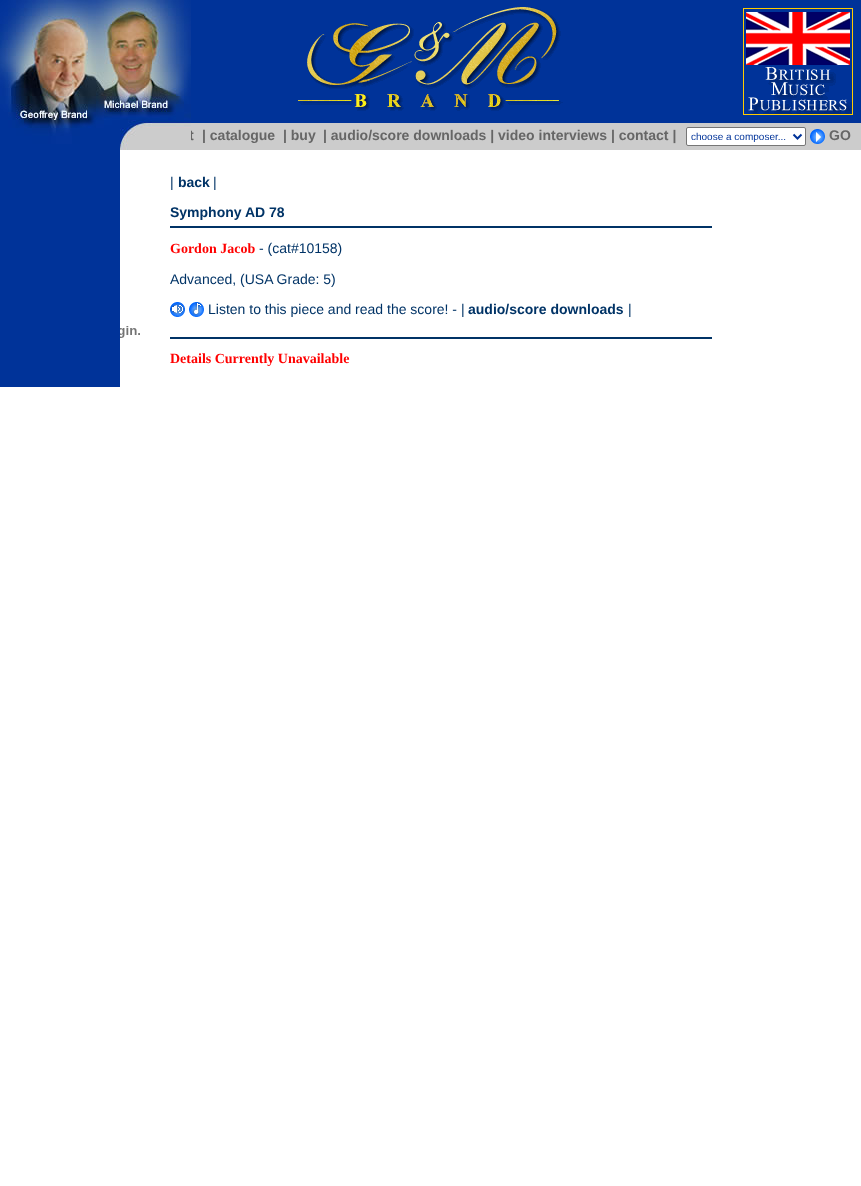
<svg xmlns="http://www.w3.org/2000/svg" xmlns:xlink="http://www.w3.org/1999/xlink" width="861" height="1186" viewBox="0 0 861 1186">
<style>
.cls-1{font:bold 14px Liberation Sans;fill:#666666}
.cls-2{font:10px Liberation Sans;fill:#003399}
.cls-3{font:14px Liberation Sans;fill:#003366}
.cls-4{font:bold 14px Liberation Sans;fill:#003366}
.cls-5{font:bold 14px Liberation Serif;fill:#ff0000}
</style>
<rect width="100%" height="100%" fill="#ffffff"/>
<rect fill="#003399" x="191" y="0" width="670" height="123"/>
<image xlink:href="image1.png" x="298" y="7" width="265" height="104"/>
<image xlink:href="image2.png" x="743" y="8" width="110" height="107"/>
<rect fill="#cccccc" x="191" y="123" width="670" height="27"/>
<rect fill="#ffffff" stroke="#767676" x="686.5" y="127.5" width="119" height="18" rx="1.5"/>
<path fill="none" stroke="#003399" stroke-width="2" d="M793.5 134.5L797.5 138.5L801.5 134.5"/>
<image xlink:href="image3.png" x="810" y="129" width="15" height="15"/>
<image xlink:href="image4.png" x="120" y="326" width="20" height="12"/>
<rect fill="#003399" x="0" y="150" width="120" height="237"/>
<rect fill="#003366" x="170" y="226" width="542" height="2"/>
<image xlink:href="image5.png" x="170" y="302" width="15" height="15"/>
<image xlink:href="image6.png" x="189" y="302" width="15" height="15"/>
<rect fill="#003366" x="170" y="337" width="542" height="2"/>
<text class="cls-1" x="189" y="140">t</text>
<image xlink:href="image0.png" x="0" y="0" width="191" height="150"/>
<text class="cls-1" x="202" y="140">| catalogue</text>
<text class="cls-1" x="283" y="140">| buy</text>
<text class="cls-1" x="323" y="140">| audio/score downloads | video interviews | contact |</text>
<text class="cls-2" x="691" y="140">choose a composer...</text>
<text class="cls-1" x="829" y="140">GO</text>
<text class="cls-3" x="170" y="187">|</text>
<text class="cls-4" x="178" y="187">back</text>
<text class="cls-3" x="213" y="187">|</text>
<text class="cls-4" x="170" y="217">Symphony AD 78</text>
<text class="cls-5" x="170" y="253">Gordon Jacob</text>
<text class="cls-3" x="259" y="253">- (cat#10158)</text>
<text class="cls-3" x="170" y="284">Advanced, (USA Grade: 5)</text>
<text class="cls-3" x="208" y="314">Listen to this piece and read the score! - |</text>
<text class="cls-4" x="468" y="314">audio/score downloads</text>
<text class="cls-3" x="628" y="314">|</text>
<text class="cls-5" x="170" y="363">Details Currently Unavailable</text>
</svg>
